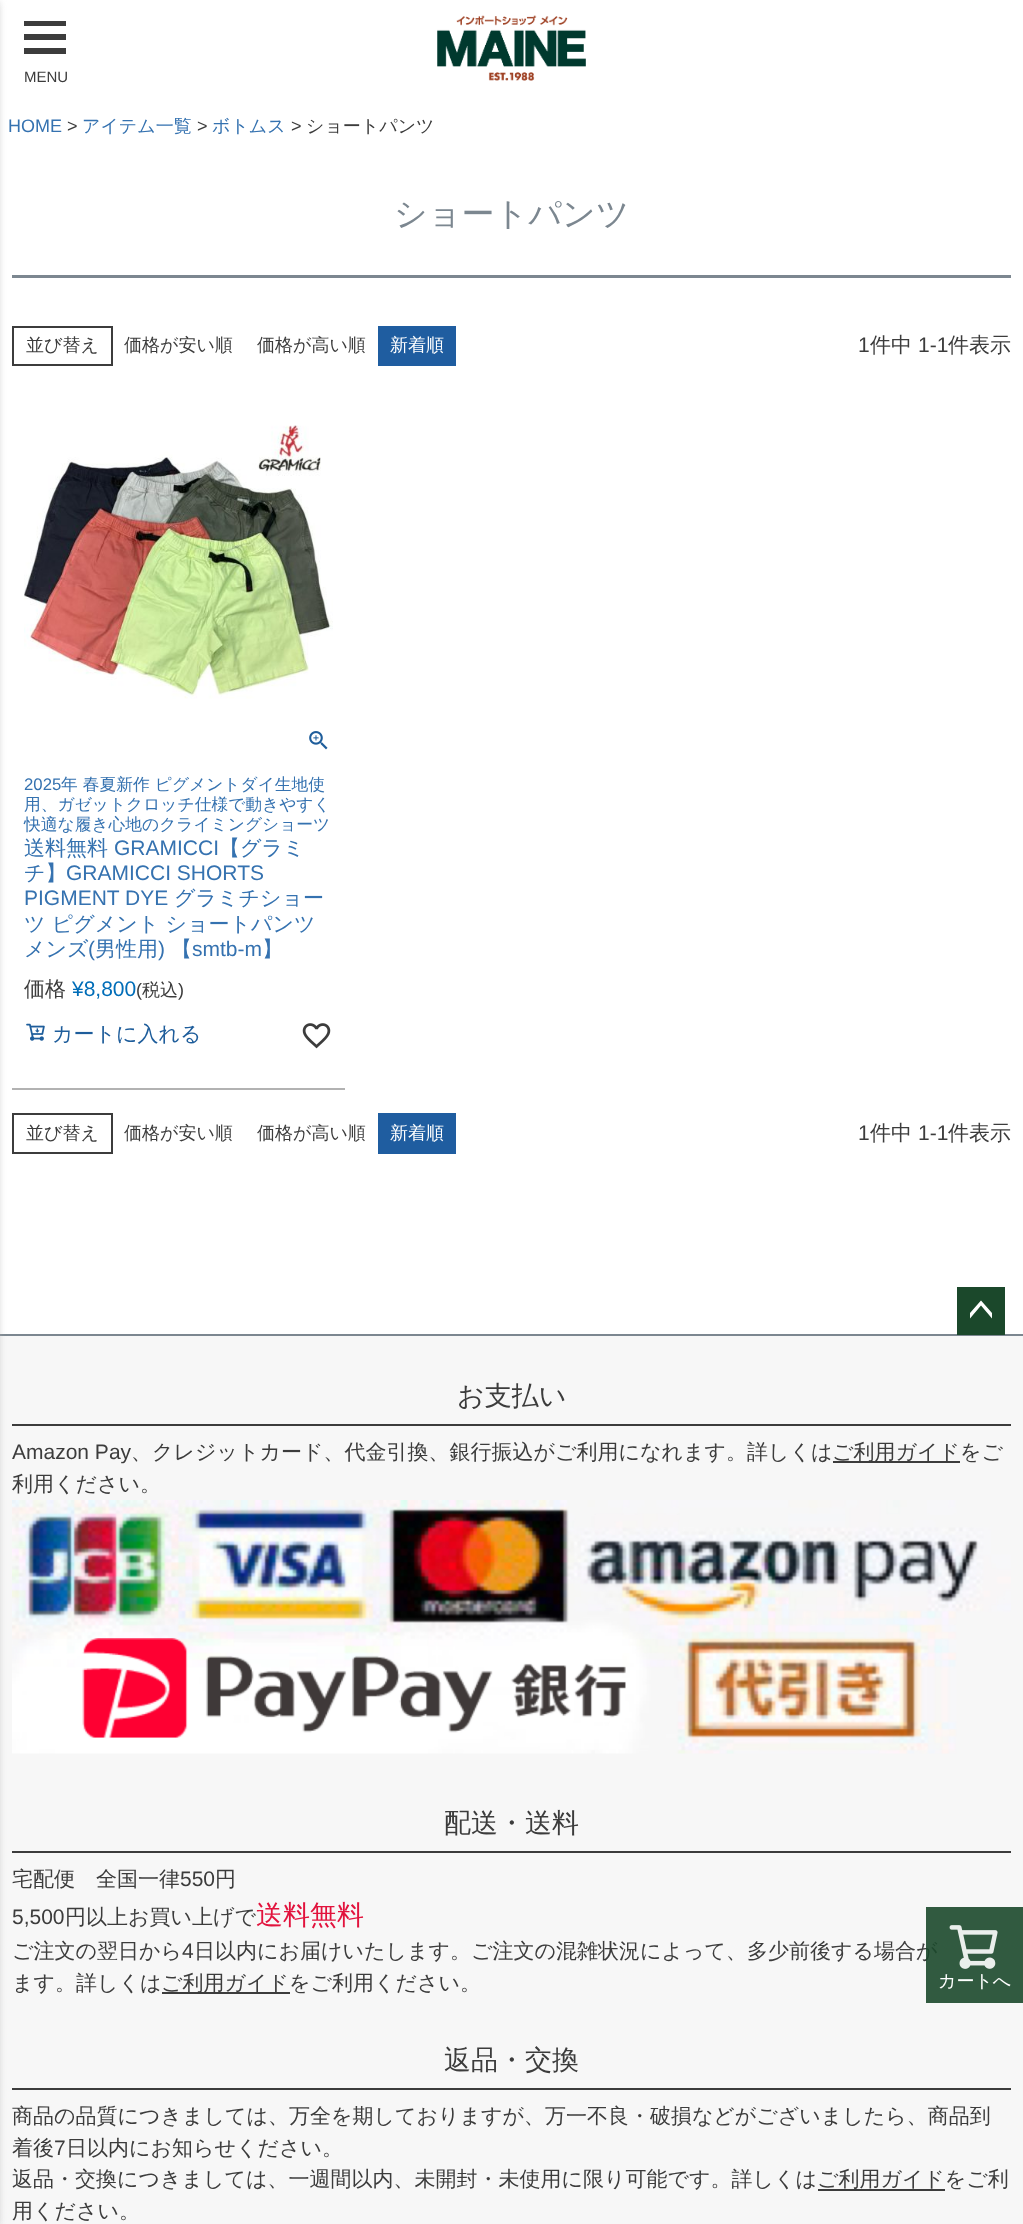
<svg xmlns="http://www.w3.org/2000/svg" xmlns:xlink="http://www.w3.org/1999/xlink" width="1023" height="2224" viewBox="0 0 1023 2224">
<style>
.cls-1{font:15px Liberation Sans;fill:#3c3c3c}
.cls-2{font:18px Liberation Sans;fill:#3572b0}
.cls-3{font:18px Liberation Sans;fill:#3c3c3c}
.cls-4{font:500 18px WenQuanYi Zen Hei;fill:#3572b0}
.cls-5{font:500 18px WenQuanYi Zen Hei;fill:#3c3c3c}
.cls-6{font:500 33px WenQuanYi Zen Hei;fill:#7c8790}
.cls-7{font:500 18px WenQuanYi Zen Hei;fill:#ffffff}
.cls-8{font:21px Liberation Sans;fill:#3c3c3c}
.cls-9{font:500 21px WenQuanYi Zen Hei;fill:#3c3c3c}
.cls-10{font:16.75px Liberation Sans;fill:#3572b0}
.cls-11{font:500 16.75px WenQuanYi Zen Hei;fill:#3572b0}
.cls-12{font:500 21px WenQuanYi Zen Hei;fill:#3572b0}
.cls-13{font:21px Liberation Sans;fill:#3572b0}
.cls-14{font:21px Liberation Sans;fill:#006db8}
.cls-15{font:500 21px WenQuanYi Zen Hei;fill:#1e5d9b}
.cls-16{font:500 27px WenQuanYi Zen Hei;fill:#3c3c3c}
.cls-17{font:500 27px WenQuanYi Zen Hei;fill:#e2133d}
</style>
<rect width="100%" height="100%" fill="#ffffff"/>
<path fill="#3c3c3c" d="M24 21H66V26H24ZM24 34H66V40H24ZM24 48H66V54H24Z"/>
<image xlink:href="image0.png" x="437" y="15" width="149" height="66"/>
<rect fill="#f7f7f7" x="0" y="1336" width="1023" height="888"/>
<rect fill="#7c8790" x="0" y="1334" width="1023" height="2"/>
<rect fill="#b2b2b2" filter="blur(4px)" x="-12" y="2" width="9" height="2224"/>
<rect fill="#7c8790" x="12" y="275" width="999" height="3"/>
<rect fill="none" stroke="#3c3c3c" stroke-width="2" x="13" y="327" width="99" height="38"/>
<rect fill="#1f5da0" x="378" y="326" width="78" height="40"/>
<rect fill="#b2b2b2" x="12" y="1088" width="333" height="2"/>
<image xlink:href="image1.png" x="24" y="425" width="309" height="274"/>
<image xlink:href="image2.png" x="309" y="731" width="19" height="19"/>
<image xlink:href="image3.png" x="26" y="1023" width="19" height="18"/>
<image xlink:href="image4.png" x="302" y="1023" width="29" height="26"/>
<rect fill="none" stroke="#3c3c3c" stroke-width="2" x="13" y="1114" width="99" height="39"/>
<rect fill="#1f5da0" x="378" y="1113" width="78" height="41"/>
<rect fill="#1b482b" x="957" y="1287" width="48" height="48"/>
<path fill="#ffffff" d="M992 1318.5L981 1305.5L970 1318.5V1313L981 1300.5L992 1313Z"/>
<rect fill="#3c3c3c" x="12" y="1424" width="999" height="2"/>
<rect fill="#3c3c3c" x="833" y="1461" width="127" height="2"/>
<image xlink:href="image6.png" x="12" y="1500" width="999" height="254"/>
<rect fill="#3c3c3c" x="12" y="1851" width="999" height="2"/>
<rect fill="#3c3c3c" x="162" y="1992" width="128" height="2"/>
<rect fill="#3c3c3c" x="12" y="2088" width="999" height="2"/>
<rect fill="#3c3c3c" x="818" y="2189" width="127" height="2"/>
<text class="cls-1" x="24" y="82">MENU</text>
<text class="cls-2" x="8" y="132">HOME</text>
<text class="cls-3" x="67" y="132">&gt;</text>
<text class="cls-4" x="82" y="132">アイテム一覧</text>
<text class="cls-3" x="197" y="132">&gt;</text>
<text class="cls-4" x="212" y="132">ボトムス</text>
<text class="cls-3" x="291" y="132">&gt;</text>
<text class="cls-5" x="306" y="132">ショートパンツ</text>
<text class="cls-6" x="394" y="225">ショートパンツ</text>
<text class="cls-5" x="26" y="351">並び替え</text>
<text class="cls-5" x="124" y="351">価格が安い順</text>
<text class="cls-5" x="257" y="351">価格が高い順</text>
<text class="cls-7" x="390" y="351">新着順</text>
<text class="cls-8" x="858" y="352">1</text>
<text class="cls-9" x="870" y="352">件中</text>
<text class="cls-8" x="918" y="352">1-1</text>
<text class="cls-9" x="948" y="352">件表示</text>
<text class="cls-10" x="24" y="790">2025</text>
<text class="cls-11" x="61" y="790">年 春夏新作 ピグメントダイ生地使</text>
<text class="cls-11"><tspan x="24" y="810">用、ガゼットクロッチ仕様で動きやすく</tspan><tspan x="24" y="830">快適な履き心地のクライミングショーツ</tspan></text>
<text class="cls-12" x="24" y="855">送料無料</text>
<text class="cls-13" x="114" y="855">GRAMICCI</text>
<text class="cls-12" x="219" y="855">【グラミ</text>
<text class="cls-12" x="24" y="880">チ】</text>
<text class="cls-13" x="66" y="880">GRAMICCI SHORTS</text>
<text class="cls-13" x="24" y="905">PIGMENT DYE</text>
<text class="cls-12" x="174" y="905">グラミチショー</text>
<text class="cls-12"><tspan x="24" y="931">ツ ピグメント ショートパンツ</tspan><tspan x="24" y="956">メンズ</tspan></text>
<text class="cls-13" x="88" y="956">(</text>
<text class="cls-12" x="95" y="956">男性用</text>
<text class="cls-13" x="158" y="956">)</text>
<text class="cls-12" x="171" y="956">【</text>
<text class="cls-13" x="192" y="956">smtb-m</text>
<text class="cls-12" x="262" y="956">】</text>
<text class="cls-9" x="24" y="996">価格</text>
<text class="cls-14" x="72" y="996">¥8,800</text>
<text class="cls-3" x="136" y="996">(</text>
<text class="cls-5" x="142" y="996">税込</text>
<text class="cls-3" x="178" y="996">)</text>
<text class="cls-15" x="52" y="1041">カートに入れる</text>
<text class="cls-5" x="26" y="1139">並び替え</text>
<text class="cls-5" x="124" y="1139">価格が安い順</text>
<text class="cls-5" x="257" y="1139">価格が高い順</text>
<text class="cls-7" x="390" y="1139">新着順</text>
<text class="cls-8" x="858" y="1140">1</text>
<text class="cls-9" x="870" y="1140">件中</text>
<text class="cls-8" x="918" y="1140">1-1</text>
<text class="cls-9" x="948" y="1140">件表示</text>
<text class="cls-16" x="457" y="1405">お支払い</text>
<text class="cls-8" x="12" y="1459">Amazon Pay</text>
<text class="cls-9" x="131" y="1459">、クレジットカード、代金引換、銀行振込がご利用になれます。詳しくは</text>
<text class="cls-9" x="832" y="1459">ご利用ガイドをご</text>
<text class="cls-9" x="12" y="1491">利用ください。</text>
<text class="cls-16" x="444" y="1832">配送・送料</text>
<text class="cls-9" x="12" y="1886">宅配便　全国一律</text>
<text class="cls-8" x="180" y="1886">550</text>
<text class="cls-9" x="215" y="1886">円</text>
<text class="cls-8" x="12" y="1924">5,500</text>
<text class="cls-9" x="65" y="1924">円以上お買い上げで</text>
<text class="cls-17" x="256" y="1924">送料無料</text>
<text class="cls-9" x="12" y="1958">ご注文の翌日から</text>
<text class="cls-8" x="182" y="1958">4</text>
<text class="cls-9" x="194" y="1958">日以内にお届けいたします。ご注文の混雑状況によって、多少前後する場合が</text>
<rect fill="#1b482b" fill-opacity="0.9" x="926" y="1907" width="97" height="96"/>
<text class="cls-7" x="938" y="1987">カートへ</text>
<image xlink:href="image5.png" x="949" y="1925" width="49" height="44"/>
<text class="cls-9" x="12" y="1990">ます。詳しくは</text>
<text class="cls-9" x="161" y="1990">ご利用ガイドをご利用ください。</text>
<text class="cls-16" x="444" y="2069">返品・交換</text>
<text class="cls-9"><tspan x="12" y="2123">商品の品質につきましては、万全を期しておりますが、万一不良・破損などがございましたら、商品到</tspan><tspan x="12" y="2155">着後</tspan></text>
<text class="cls-8" x="54" y="2155">7</text>
<text class="cls-9" x="66" y="2155">日以内にお知らせください。</text>
<text class="cls-9"><tspan x="12" y="2186">返品・交換につきましては、一週間以内、未開封・未使用に限り可能です。詳しくはご利用ガイドをご利</tspan><tspan x="12" y="2218">用ください。</tspan></text>
</svg>
